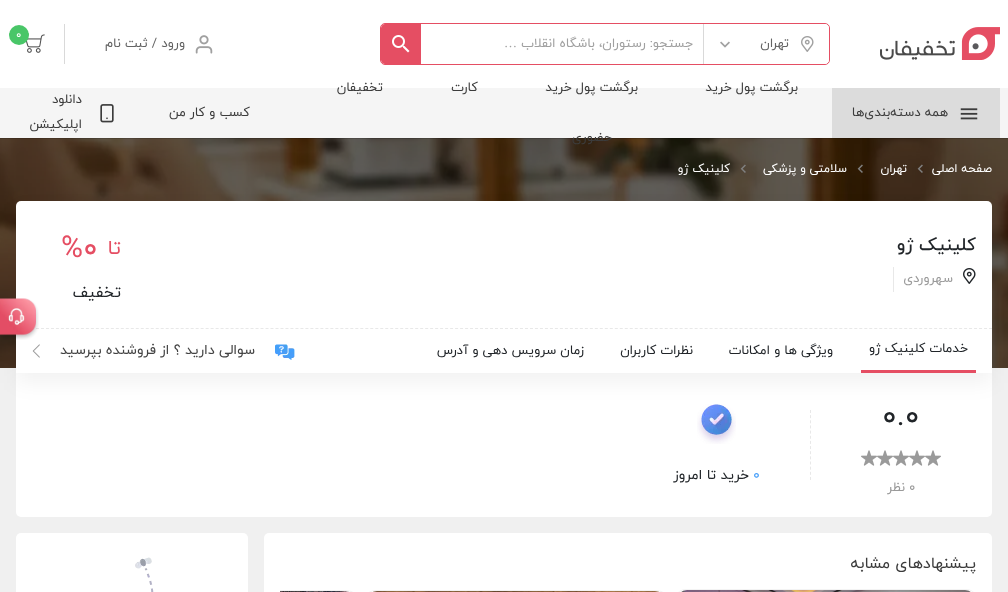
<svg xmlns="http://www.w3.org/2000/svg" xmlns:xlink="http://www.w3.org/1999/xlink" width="1008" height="592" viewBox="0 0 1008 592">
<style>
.cls-1{font:13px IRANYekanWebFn;direction:rtl;fill:#646464}
.cls-2{font:13px IRANYekanWebFn;direction:rtl;fill:#a0a0a0}
.cls-3{font:13px Liberation Serif;direction:rtl;fill:#a0a0a0}
.cls-4{font:11px IRANYekanWebFn;fill:#ffffff}
.cls-5{font:13px IRANYekanWebFn;direction:rtl;fill:#3c3c3c}
.cls-6{font:12px IRANYekanWebFn;direction:rtl;fill:#ffffff}
.cls-7{font:500 18px IRANYekanWebFn;direction:rtl;fill:#212529}
.cls-8{font:13px IRANYekanWebFn;direction:rtl;fill:#9a9a9a}
.cls-9{font:20px IRANYekanWebFn;direction:rtl;fill:#e54e63}
.cls-10{font:30px IRANYekanWebFn;fill:#e54e63}
.cls-11{font:16px IRANYekanWebFn;direction:rtl;fill:#212529}
.cls-12{font:13px IRANYekanWebFn;direction:rtl;fill:#212529}
.cls-13{font:14px IRANYekanWebFn;direction:rtl;fill:#434343}
.cls-14{font:30px IRANYekanWebFn;fill:#212529}
.cls-15{font:13px IRANYekanWebFn;fill:#9a9a9a}
.cls-16{font:14px IRANYekanWebFn;fill:#459efa}
.cls-17{font:14px IRANYekanWebFn;direction:rtl;fill:#212529}
.cls-18{font:16px IRANYekanWebFn;direction:rtl;fill:#3c3c3c}
</style>
<defs>
<clipPath id="clip1"><path d="M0 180H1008V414H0ZM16 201H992V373H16Z" clip-rule="evenodd"/></clipPath>
<clipPath id="clip2"><rect x="280" y="589" width="696" height="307"/></clipPath>
</defs>
<rect width="100%" height="100%" fill="#f0f0f0"/>
<rect fill="#ffffff" x="0" y="0" width="1008" height="88"/>
<image xlink:href="image0.png" x="880" y="27" width="120" height="33"/>
<rect fill="none" stroke="#e54e63" x="380.5" y="23.5" width="449" height="41" rx="4.5"/>
<rect fill="#d9d9d9" x="703" y="24" width="1" height="40"/>
<path fill="#ffffff" d="M704 24H824C827 24 829 26 829 29V59C829 62 827 64 824 64H704Z"/>
<image xlink:href="image1.png" x="801" y="36" width="13" height="16"/>
<image xlink:href="image2.png" x="720" y="41" width="10" height="7"/>
<path fill="#e54e63" d="M385 24H421V64H385C383 64 381 62 381 60V28C381 26 383 24 385 24Z"/>
<image xlink:href="image3.png" x="392" y="35" width="18" height="18"/>
<rect fill="#d9d9d9" x="64" y="24" width="1" height="40"/>
<image xlink:href="image4.png" x="26" y="34" width="19" height="19"/>
<circle fill="#49c668" cx="19" cy="35" r="10"/>
<image xlink:href="image5.png" x="195" y="35" width="18" height="19"/>
<image xlink:href="image8.png" x="0" y="138" width="1008" height="230"/>
<rect fill="#000000" fill-opacity="0.15" filter="blur(0.5px)" x="0" y="89" width="1008" height="50"/>
<rect fill="#f5f5f5" x="0" y="88" width="1008" height="50"/>
<rect fill="#dcdcdc" x="832" y="88" width="168" height="50"/>
<image xlink:href="image6.png" x="960" y="108" width="18" height="12"/>
<image xlink:href="image7.png" x="100" y="104" width="14" height="19"/>
<image xlink:href="image9.png" x="917" y="164" width="6" height="9"/>
<image xlink:href="image10.png" x="857" y="164" width="6" height="9"/>
<image xlink:href="image11.png" x="740" y="164" width="6" height="9"/>
<rect fill="#ffffff" x="16" y="201" width="976" height="316" rx="5"/>
<g clip-path="url(#clip1)">
<rect fill="#000000" fill-opacity="0.05" filter="blur(10px)" x="16" y="211" width="976" height="172"/>
</g>
<path fill="none" stroke="#e8e8e8" stroke-dasharray="3 1.99" d="M16 328.5H992"/>
<image xlink:href="image12.png" x="963" y="268" width="13" height="16"/>
<rect fill="#e8e8e8" x="893" y="267" width="1" height="25"/>
<rect fill="#e54e63" x="861" y="370" width="115" height="3"/>
<image xlink:href="image13.png" x="275" y="344" width="20" height="16"/>
<image xlink:href="image14.png" x="32" y="344" width="8" height="14"/>
<image xlink:href="image15.png" x="925" y="450" width="16" height="16"/>
<image xlink:href="image15.png" x="909" y="450" width="16" height="16"/>
<image xlink:href="image15.png" x="893" y="450" width="16" height="16"/>
<image xlink:href="image15.png" x="877" y="450" width="16" height="16"/>
<image xlink:href="image15.png" x="861" y="450" width="16" height="16"/>
<path fill="none" stroke="#e8e8e8" stroke-dasharray="3 2.15" d="M810.5 410V480"/>
<image xlink:href="image16.png" x="697" y="404" width="39" height="40"/>
<rect fill="#ffffff" x="264" y="533" width="728" height="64" rx="5"/>
<rect fill="none" stroke="#f3f3f3" x="676.5" y="589.5" width="299" height="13" rx="9.5"/>
<image xlink:href="image17.png" x="681" y="590" width="290" height="2"/>
<path fill="#000000" fill-opacity="0.1" d="M687 590H965C970.5 590 975 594.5 975 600V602H677V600C677 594.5 681.5 590 687 590Z"/>
<rect fill="none" stroke="#f3f3f3" x="366.5" y="590.5" width="299" height="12" rx="9.5"/>
<image xlink:href="image18.png" x="373" y="591" width="286" height="1"/>
<path fill="#000000" fill-opacity="0.1" d="M377 591H655C660.5 591 665 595.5 665 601V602H367V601C367 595.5 371.5 591 377 591Z"/>
<g clip-path="url(#clip2)">
<rect fill="none" stroke="#f3f3f3" x="56.5" y="590.5" width="299" height="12" rx="9.5"/>
</g>
<image xlink:href="image19.png" x="280" y="591" width="69" height="1"/>
<path fill="#000000" fill-opacity="0.1" d="M280 591H345C350.5 591 355 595.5 355 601V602H280Z"/>
<rect fill="#ffffff" x="16" y="533" width="232" height="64" rx="5"/>
<image xlink:href="image20.png" x="135" y="557" width="19" height="35"/>
<image xlink:href="image21.png" x="0" y="298" width="39" height="42"/>
<text class="cls-1" x="789" y="47">تهران</text>
<text class="cls-2" x="693" y="47">جستجو: رستوران، باشگاه انقلاب</text>
<text class="cls-3" x="517" y="47">…</text>
<text class="cls-4" x="16" y="38">0</text>
<text class="cls-1" x="185" y="47">ورود / ثبت نام</text>
<text class="cls-5" x="798" y="91">برگشت پول خرید</text>
<text class="cls-5" x="638" y="91">برگشت پول خرید</text>
<text class="cls-5" x="612" y="141">حضوری</text>
<text class="cls-5" x="478" y="91">کارت</text>
<text class="cls-5" x="383" y="91">تخفیفان</text>
<text class="cls-5" x="948" y="116">همه دسته‌بندی‌ها</text>
<text class="cls-5" x="250" y="116">کسب و کار من</text>
<text class="cls-5"><tspan x="82" y="103">دانلود</tspan><tspan x="82" y="128">اپلیکیشن</tspan></text>
<text class="cls-6" x="992" y="172">صفحه اصلی</text>
<text class="cls-6" x="907" y="172">تهران</text>
<text class="cls-6" x="847" y="172">سلامتی و پزشکی</text>
<text class="cls-6" x="730" y="172">کلینیک ژو</text>
<text class="cls-7" x="976" y="250">کلینیک ژو</text>
<text class="cls-8" x="953" y="282">سهروردی</text>
<text class="cls-9" x="121" y="254">تا</text>
<text class="cls-10" x="61" y="257">%0</text>
<text class="cls-11" x="121" y="297">تخفیف</text>
<text class="cls-12" x="968" y="352">خدمات کلینیک ژو</text>
<text class="cls-12" x="833" y="354">ویژگی ها و امکانات</text>
<text class="cls-12" x="693" y="354">نظرات کاربران</text>
<text class="cls-12" x="584" y="354">زمان سرویس دهی و آدرس</text>
<text class="cls-13" x="255" y="354">سوالی دارید ؟ از فروشنده بپرسید</text>
<text class="cls-14" x="882" y="425">0.0</text>
<text class="cls-15" x="909" y="491">0</text>
<text class="cls-8" x="905" y="491">نظر</text>
<text class="cls-16" x="753" y="479">0</text>
<text class="cls-17" x="749" y="479">خرید تا امروز</text>
<text class="cls-18" x="976" y="568">پیشنهادهای مشابه</text>
</svg>
